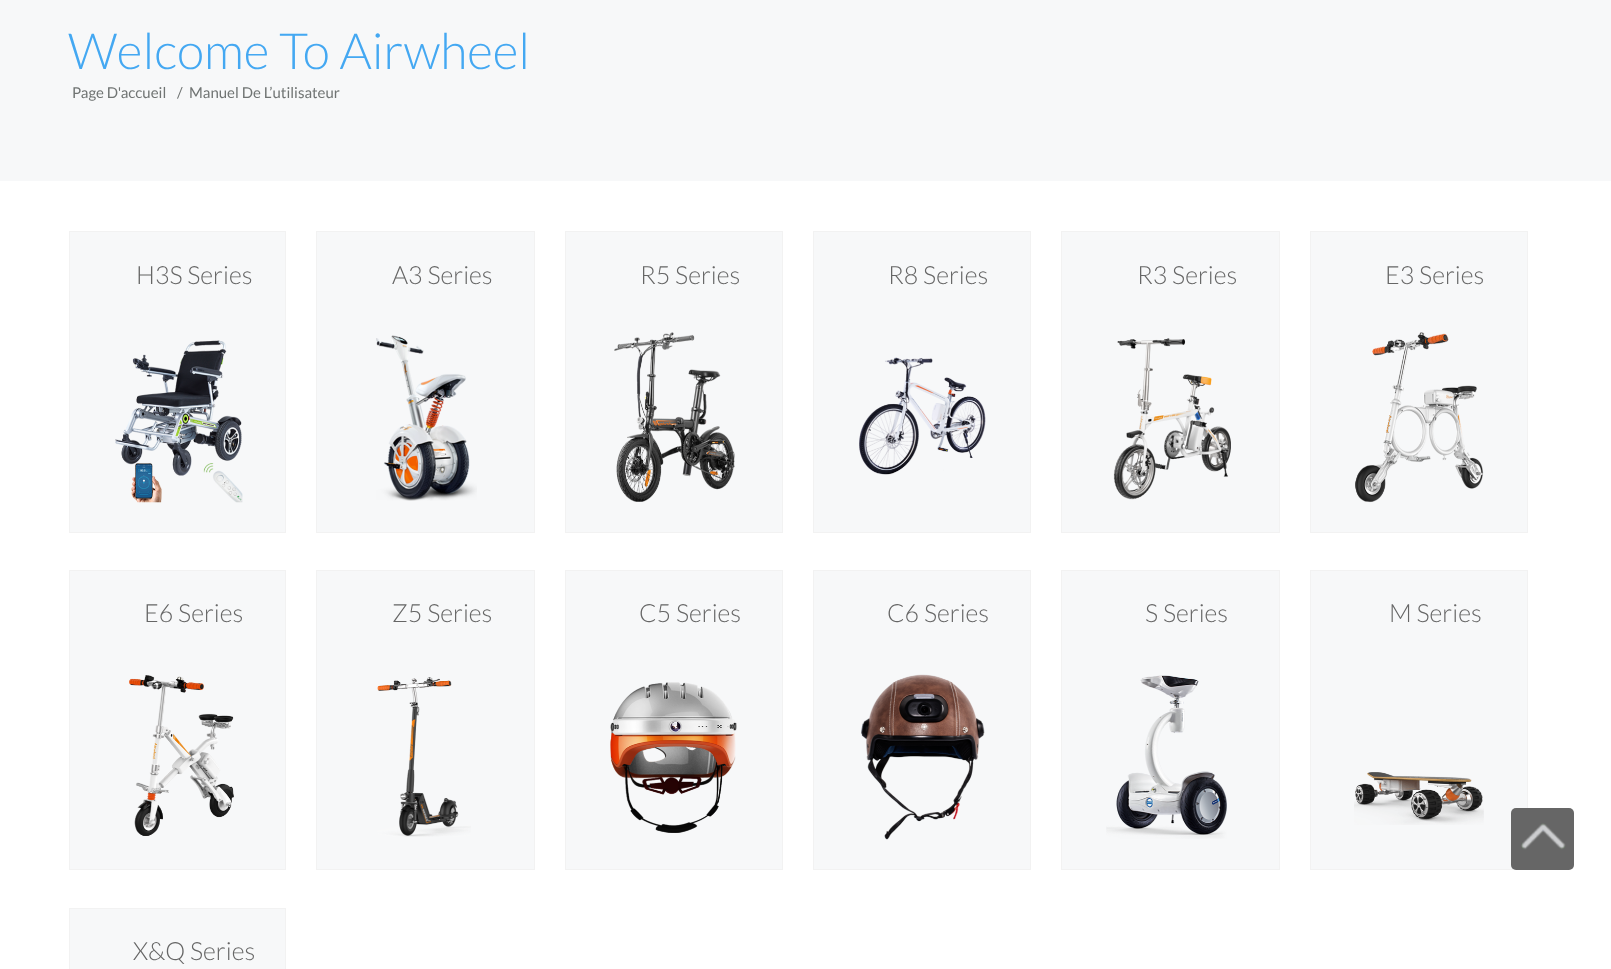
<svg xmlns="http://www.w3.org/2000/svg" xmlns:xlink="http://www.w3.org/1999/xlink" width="1611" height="969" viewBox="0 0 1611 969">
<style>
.cls-1{font:300 50px Lato;fill:#44a8f2}
.cls-2{font:15px Lato;fill:#707473}
.cls-3{font:300 25px Lato;fill:#666666}
</style>
<rect width="100%" height="100%" fill="#ffffff"/>
<rect fill="#f7f8f9" x="0" y="0" width="1611" height="181"/>
<rect fill="#f7f8f9" stroke="#f2f2f2" x="69.5" y="231.5" width="216" height="301"/>
<image xlink:href="image0.png" x="115" y="340" width="128" height="163"/>
<rect fill="#f7f8f9" stroke="#f2f2f2" x="316.5" y="231.5" width="218" height="301"/>
<image xlink:href="image1.png" x="376" y="335" width="101" height="166"/>
<rect fill="#f7f8f9" stroke="#f2f2f2" x="565.5" y="231.5" width="217" height="301"/>
<image xlink:href="image2.png" x="614" y="332" width="121" height="170"/>
<rect fill="#f7f8f9" stroke="#f2f2f2" x="813.5" y="231.5" width="217" height="301"/>
<image xlink:href="image3.png" x="859" y="357" width="127" height="118"/>
<rect fill="#f7f8f9" stroke="#f2f2f2" x="1061.5" y="231.5" width="218" height="301"/>
<image xlink:href="image4.png" x="1113" y="338" width="118" height="162"/>
<rect fill="#f7f8f9" stroke="#f2f2f2" x="1310.5" y="231.5" width="217" height="301"/>
<image xlink:href="image5.png" x="1355" y="332" width="129" height="171"/>
<rect fill="#f7f8f9" stroke="#f2f2f2" x="69.5" y="570.5" width="216" height="299"/>
<image xlink:href="image6.png" x="129" y="675" width="105" height="161"/>
<rect fill="#f7f8f9" stroke="#f2f2f2" x="316.5" y="570.5" width="218" height="299"/>
<image xlink:href="image7.png" x="377" y="677" width="94" height="160"/>
<rect fill="#f7f8f9" stroke="#f2f2f2" x="565.5" y="570.5" width="217" height="299"/>
<image xlink:href="image8.png" x="610" y="682" width="127" height="151"/>
<rect fill="#f7f8f9" stroke="#f2f2f2" x="813.5" y="570.5" width="217" height="299"/>
<image xlink:href="image9.png" x="861" y="674" width="124" height="166"/>
<rect fill="#f7f8f9" stroke="#f2f2f2" x="1061.5" y="570.5" width="218" height="299"/>
<image xlink:href="image10.png" x="1106" y="675" width="121" height="164"/>
<rect fill="#f7f8f9" stroke="#f2f2f2" x="1310.5" y="570.5" width="217" height="299"/>
<image xlink:href="image11.png" x="1354" y="772" width="130" height="53"/>
<rect fill="#f7f8f9" stroke="#f2f2f2" x="69.5" y="908.5" width="216" height="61"/>
<rect fill="#666666" x="1511" y="808" width="63" height="62" rx="5"/>
<image xlink:href="image12.png" x="1521" y="823" width="45" height="27"/>
<text class="cls-1" x="68" y="69">Welcome To Airwheel</text>
<text class="cls-2" x="72" y="98">Page D'accueil</text>
<text class="cls-2" x="177" y="98">/</text>
<text class="cls-2" x="189" y="98">Manuel De L’utilisateur</text>
<text class="cls-3" x="136" y="284">H3S Series</text>
<text class="cls-3" x="392" y="284">A3 Series</text>
<text class="cls-3" x="640" y="284">R5 Series</text>
<text class="cls-3" x="888" y="284">R8 Series</text>
<text class="cls-3" x="1137" y="284">R3 Series</text>
<text class="cls-3" x="1385" y="284">E3 Series</text>
<text class="cls-3" x="144" y="622">E6 Series</text>
<text class="cls-3" x="392" y="622">Z5 Series</text>
<text class="cls-3" x="639" y="622">C5 Series</text>
<text class="cls-3" x="887" y="622">C6 Series</text>
<text class="cls-3" x="1145" y="622">S Series</text>
<text class="cls-3" x="1389" y="622">M Series</text>
<text class="cls-3" x="133" y="960">X&amp;Q Series</text>
</svg>
